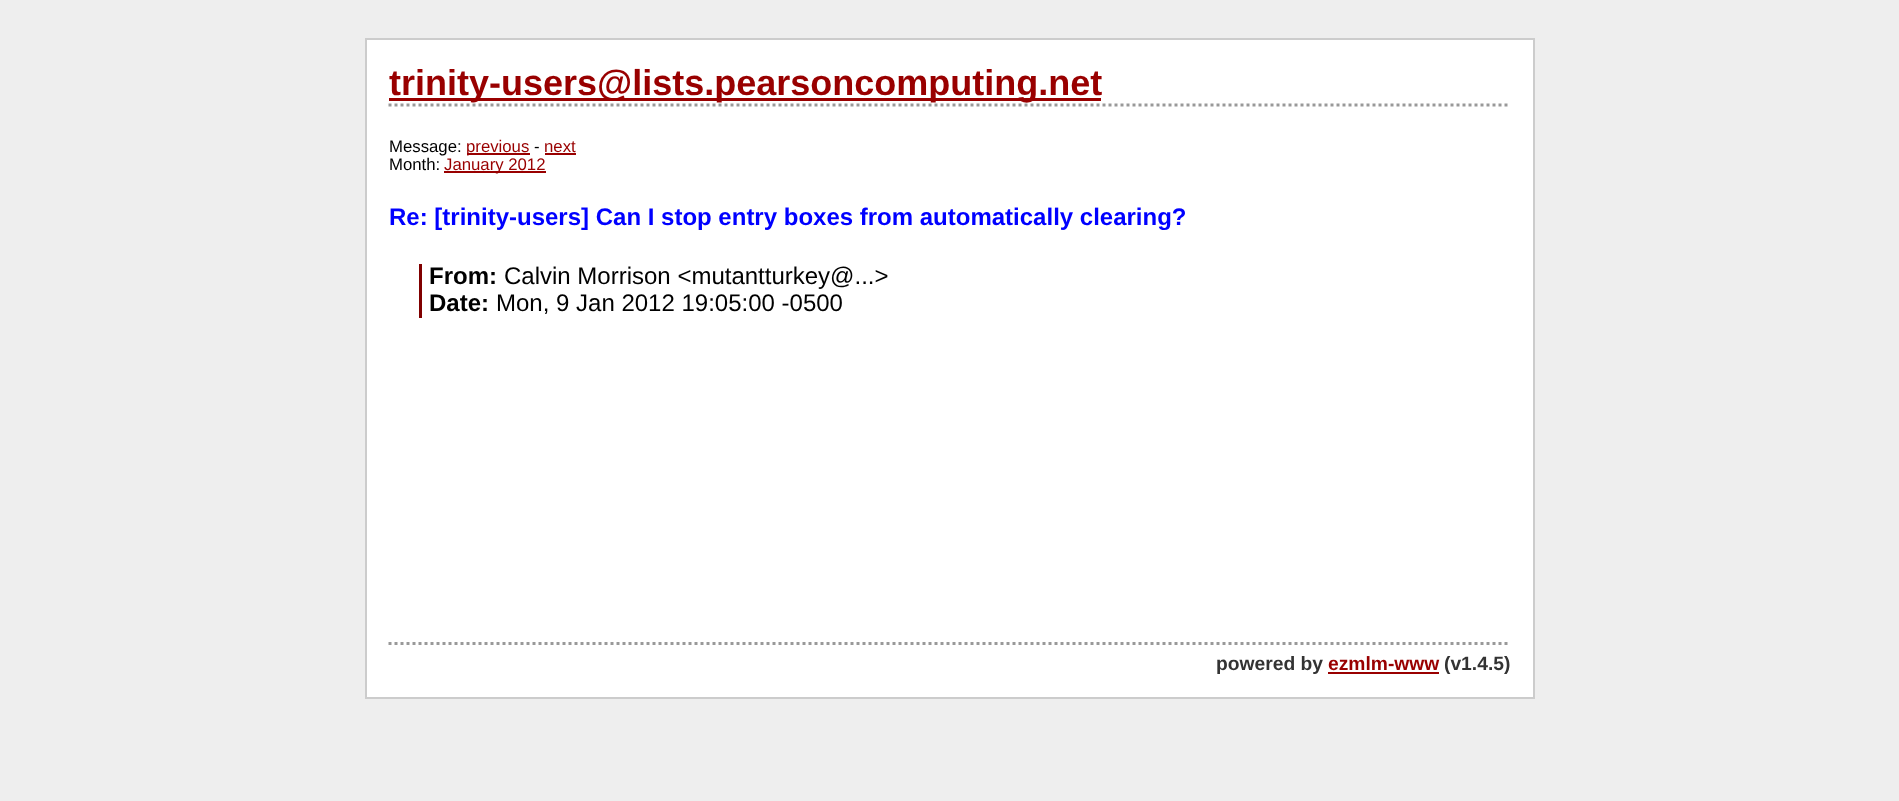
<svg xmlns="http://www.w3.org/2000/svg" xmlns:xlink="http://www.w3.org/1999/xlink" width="1899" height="801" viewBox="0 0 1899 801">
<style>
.cls-1{font:bold 36px Liberation Sans;fill:#990000}
.cls-2{font:16.75px Liberation Sans;fill:#000000}
.cls-3{font:16.75px Liberation Sans;fill:#990000}
.cls-4{font:bold 24px Liberation Sans;fill:#0000ff}
.cls-5{font:bold 24px Liberation Sans;fill:#000000}
.cls-6{font:24px Liberation Sans;fill:#000000}
.cls-7{font:bold 19.25px Liberation Sans;fill:#333333}
.cls-8{font:bold 19.25px Liberation Sans;fill:#990000}
</style>
<rect width="100%" height="100%" fill="#eeeeee"/>
<rect fill="#ffffff" stroke="#cccccc" stroke-width="2" x="366" y="39" width="1168" height="659"/>
<path fill="none" stroke="#999999" stroke-width="3" stroke-dasharray="3 3" d="M388.5 105H1510.5"/>
<rect fill="#990000" x="389" y="98" width="712" height="3"/>
<rect fill="#990000" x="467" y="153" width="63" height="2"/>
<rect fill="#990000" x="545" y="153" width="31" height="2"/>
<rect fill="#990000" x="444" y="171" width="102" height="2"/>
<rect fill="#800000" x="419" y="264" width="3" height="54"/>
<path fill="none" stroke="#999999" stroke-width="3" stroke-dasharray="3 3" d="M388.5 643.5H1510.5"/>
<rect fill="#990000" x="1328" y="672" width="111" height="2"/>
<text class="cls-1" x="389" y="95">trinity-users@lists.pearsoncomputing.net</text>
<text class="cls-2" x="389" y="152">Message:</text>
<text class="cls-3" x="466" y="152">previous</text>
<text class="cls-2" x="534" y="152">-</text>
<text class="cls-3" x="544" y="152">next</text>
<text class="cls-2" x="389" y="170">Month:</text>
<text class="cls-3" x="444" y="170">January 2012</text>
<text class="cls-4" x="389" y="225">Re: [trinity-users] Can I stop entry boxes from automatically clearing?</text>
<text class="cls-5" x="429" y="284">From:</text>
<text class="cls-6" x="504" y="284">Calvin Morrison &lt;mutantturkey@...&gt;</text>
<text class="cls-5" x="429" y="311">Date:</text>
<text class="cls-6" x="496" y="311">Mon, 9 Jan 2012 19:05:00 -0500</text>
<text class="cls-7" x="1216" y="670">powered by</text>
<text class="cls-8" x="1328" y="670">ezmlm-www</text>
<text class="cls-7" x="1444" y="670">(v1.4.5)</text>
</svg>
